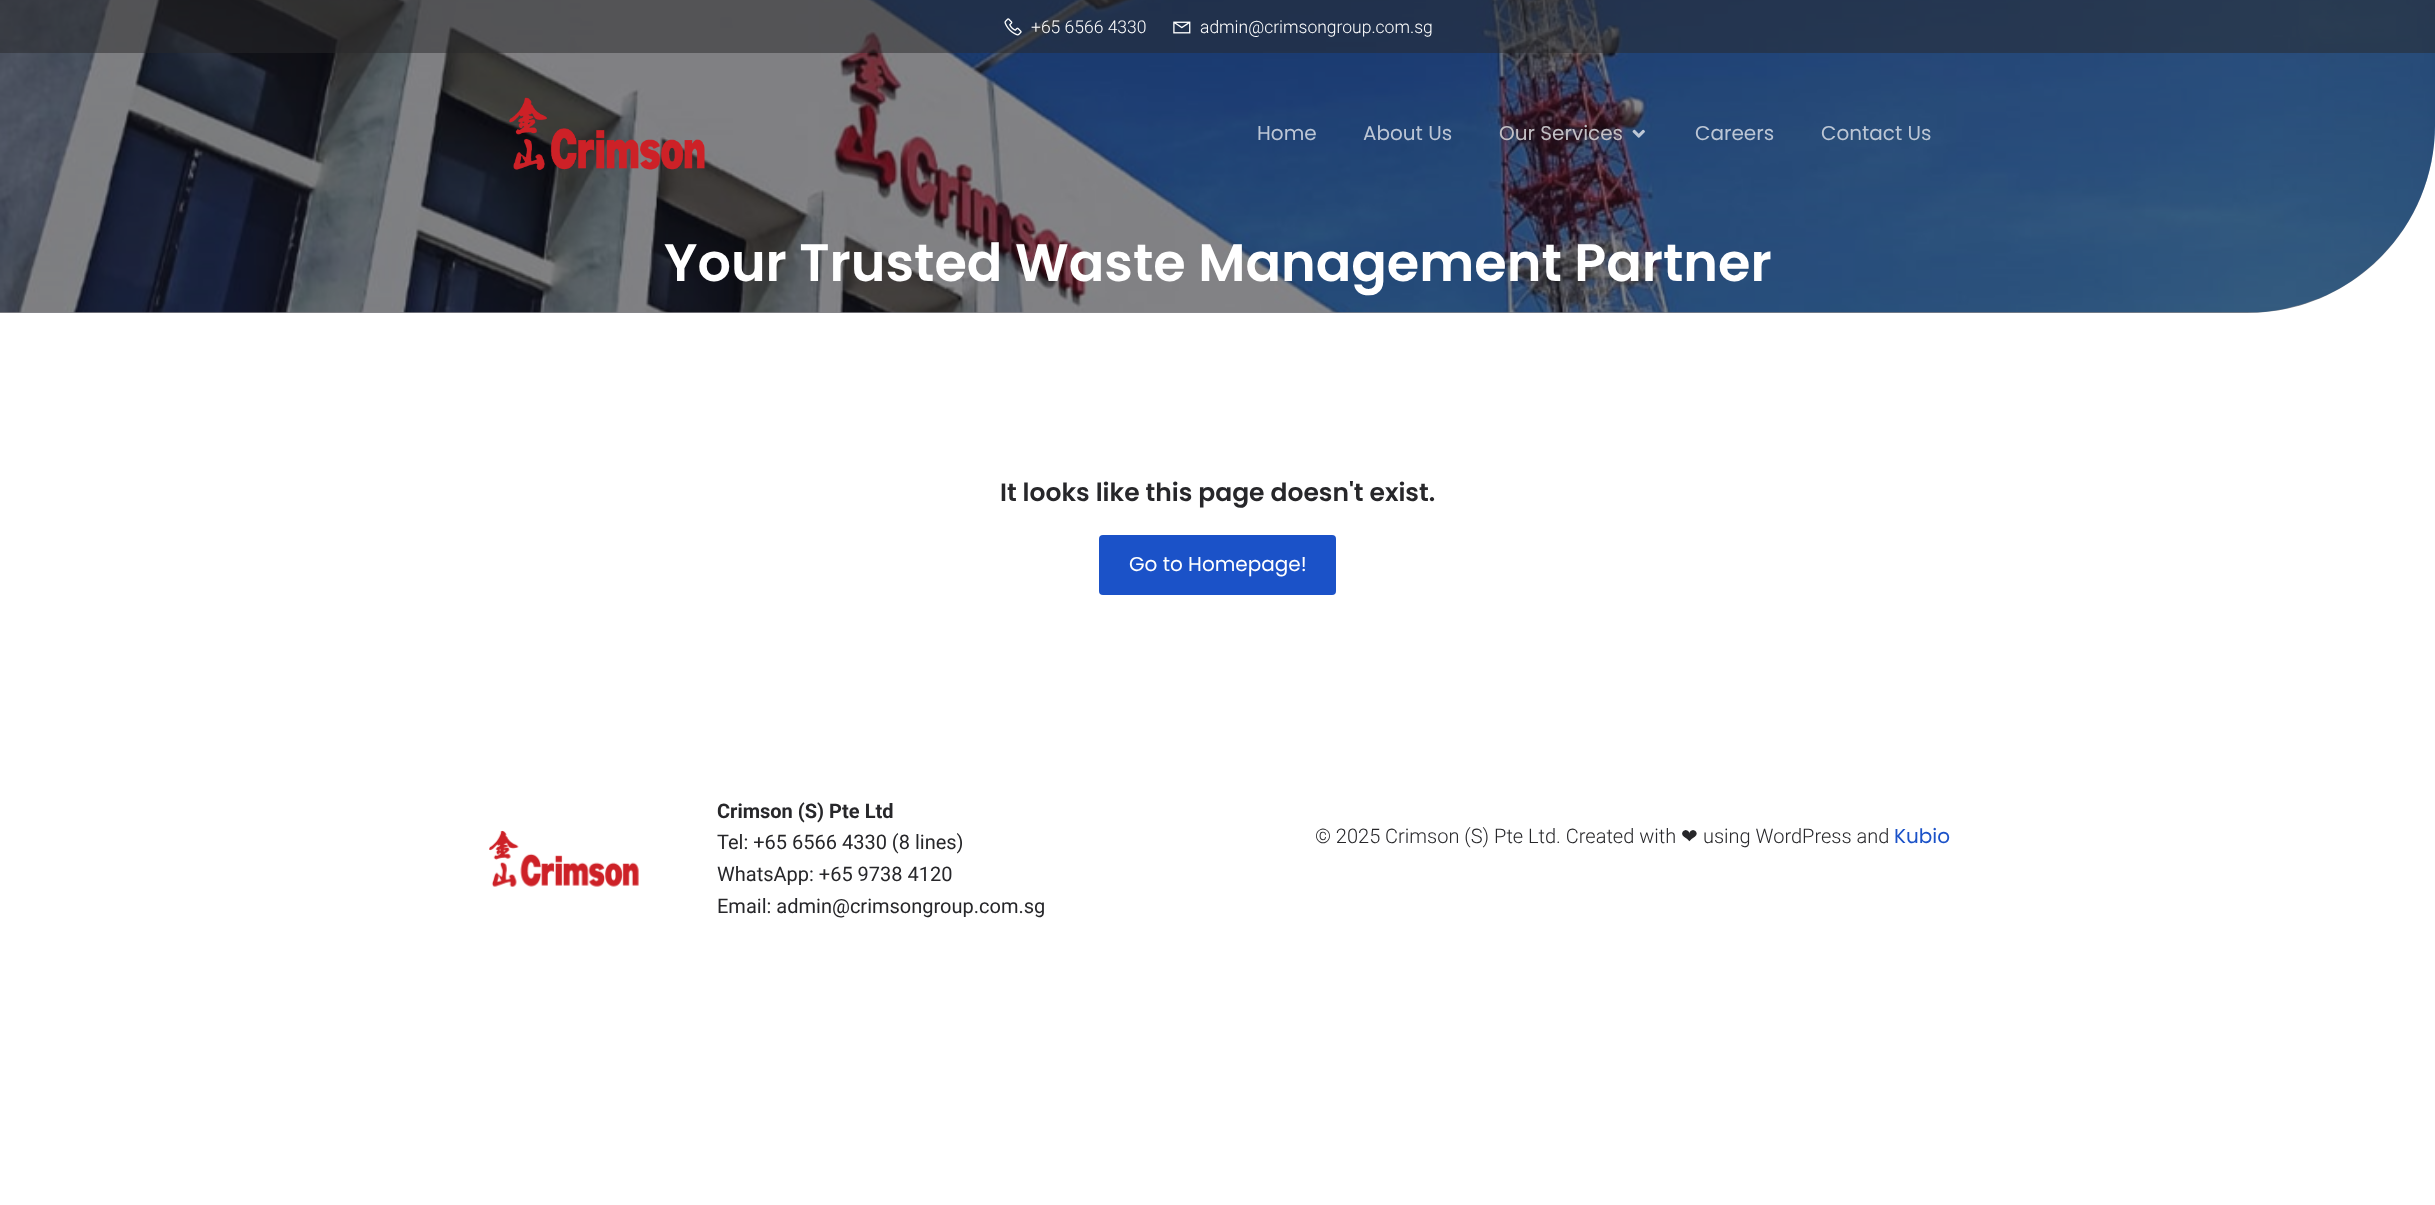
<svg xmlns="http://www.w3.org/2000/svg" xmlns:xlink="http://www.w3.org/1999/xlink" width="2435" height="1205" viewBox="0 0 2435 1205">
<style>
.cls-1{font:300 17.5px Roboto;fill:#ffffff}
.cls-2{font:20px Poppins;fill:#bcc6d5}
.cls-3{font:20px Poppins;fill:#c2bfc4}
.cls-4{font:600 52.5px Poppins;fill:#ffffff}
.cls-5{font:600 25px Poppins;fill:#27272a}
.cls-6{font:20px Poppins;fill:#ffffff}
.cls-7{font:bold 20px Roboto;fill:#27272a}
.cls-8{font:20px Roboto;fill:#27272a}
.cls-9{font:300 20px Roboto;fill:#27272a}
.cls-10{font:20px DejaVu Sans;fill:#27272a}
.cls-11{font:20px Poppins;fill:#1b52c8}
</style>
<rect width="100%" height="100%" fill="#ffffff"/>
<image xlink:href="image4.png" x="0" y="0" width="2435" height="313"/>
<path fill="#11121a" fill-opacity="0.5" d="M0 0H2435V125C2435 229 2351 313 2247 313H0Z"/>
<rect fill="#27272a" fill-opacity="0.5" x="0" y="0" width="2435" height="53"/>
<image xlink:href="image0.png" x="1004" y="18" width="18" height="18"/>
<image xlink:href="image1.png" x="1173" y="21" width="18" height="13"/>
<image xlink:href="image2.png" x="509" y="97" width="196" height="74"/>
<image xlink:href="image3.png" x="1632" y="129" width="13" height="9"/>
<rect fill="#1b52c8" x="1099" y="535" width="237" height="60" rx="4"/>
<image xlink:href="image5.png" x="489" y="830" width="150" height="57"/>
<text class="cls-1" x="1031" y="33">+65 6566 4330</text>
<text class="cls-1" x="1200" y="33">admin@crimsongroup.com.sg</text>
<text class="cls-2" x="1257" y="140">Home</text>
<text class="cls-2" x="1363" y="140">About Us</text>
<text class="cls-3" x="1499" y="140">Our Services</text>
<text class="cls-2" x="1695" y="140">Careers</text>
<text class="cls-2" x="1821" y="140">Contact Us</text>
<text class="cls-4" x="664" y="281">Your Trusted Waste Management Partner</text>
<text class="cls-5" x="1000" y="501">It looks like this page doesn't exist.</text>
<text class="cls-6" x="1129" y="571">Go to Homepage!</text>
<text class="cls-7" x="717" y="818">Crimson (S) Pte Ltd</text>
<text class="cls-8"><tspan x="717" y="849">Tel: +65 6566 4330 (8 lines)</tspan><tspan x="717" y="881">WhatsApp: +65 9738 4120</tspan><tspan x="717" y="913">Email: admin@crimsongroup.com.sg</tspan></text>
<text class="cls-9" x="1315" y="843">© 2025 Crimson (S) Pte Ltd. Created with</text>
<text class="cls-10" x="1681" y="843">❤</text>
<text class="cls-9" x="1703" y="843">using WordPress and</text>
<text class="cls-11" x="1894" y="843">Kubio</text>
</svg>
